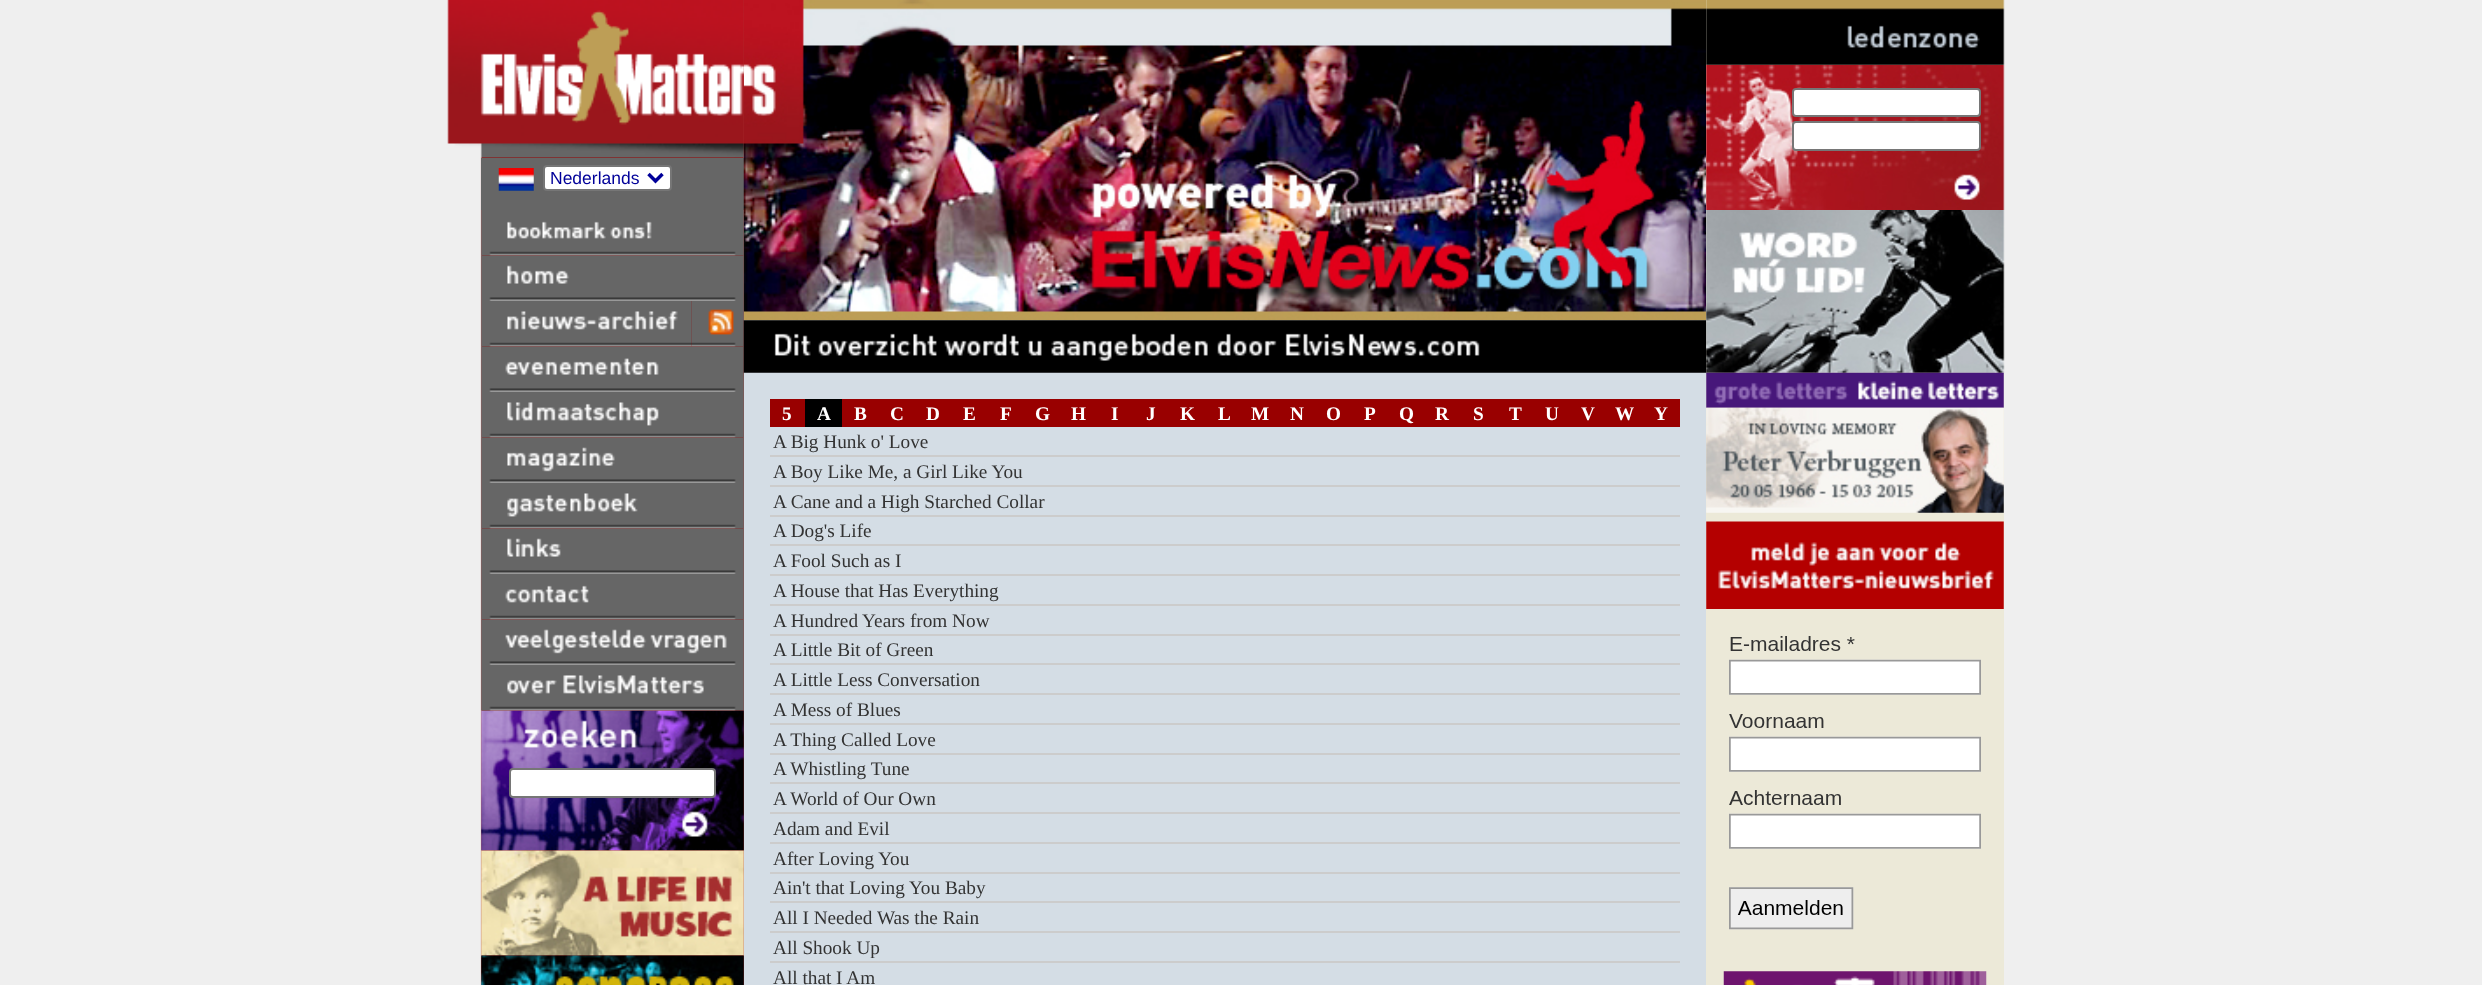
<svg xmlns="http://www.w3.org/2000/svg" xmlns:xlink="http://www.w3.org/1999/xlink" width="2482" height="985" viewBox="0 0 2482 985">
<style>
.cls-1{font:17.5px Liberation Sans;fill:#000099}
.cls-2{font:bold 19.25px Liberation Serif;fill:#ffffff}
.cls-3{font:19.25px Liberation Serif;fill:#333333}
</style>
<rect width="100%" height="100%" fill="#efefef"/>
<image xlink:href="image0.png" x="480" y="0" width="264" height="985"/>
<rect fill="#666666" x="481" y="158" width="263" height="52"/>
<rect fill="#d4dde5" x="744" y="320" width="962" height="665"/>
<image xlink:href="image26.png" x="743" y="0" width="963" height="321"/>
<image xlink:href="image1.png" x="447" y="0" width="297" height="158"/>
<image xlink:href="image2.png" x="498" y="168" width="36" height="23"/>
<rect fill="#ffffff" stroke="#767676" stroke-width="2" x="544" y="166" width="127" height="24" rx="3"/>
<path fill="none" stroke="#000099" stroke-width="3.5" d="M648.5 174L655.5 181L662.5 174"/>
<image xlink:href="image3.png" x="481" y="210" width="263" height="46"/>
<image xlink:href="image4.png" x="481" y="255" width="263" height="46"/>
<image xlink:href="image5.png" x="481" y="301" width="211" height="46"/>
<image xlink:href="image6.png" x="691" y="301" width="53" height="46"/>
<image xlink:href="image7.png" x="481" y="346" width="263" height="46"/>
<image xlink:href="image8.png" x="481" y="392" width="263" height="46"/>
<image xlink:href="image9.png" x="481" y="437" width="263" height="46"/>
<image xlink:href="image10.png" x="481" y="483" width="263" height="46"/>
<image xlink:href="image11.png" x="481" y="528" width="263" height="46"/>
<image xlink:href="image12.png" x="481" y="574" width="263" height="46"/>
<image xlink:href="image13.png" x="481" y="619" width="263" height="46"/>
<image xlink:href="image15.png" x="481" y="710" width="263" height="141"/>
<image xlink:href="image14.png" x="481" y="665" width="263" height="46"/>
<rect fill="#ffffff" stroke="#767676" stroke-width="2" x="510" y="769" width="205" height="28" rx="3"/>
<image xlink:href="image16.png" x="481" y="850" width="263" height="106"/>
<image xlink:href="image17.png" x="481" y="955" width="263" height="30"/>
<rect fill="#ece9d8" x="1706" y="0" width="298" height="985"/>
<image xlink:href="image19.png" x="1706" y="64" width="299" height="146"/>
<image xlink:href="image18.png" x="1706" y="0" width="299" height="65"/>
<rect fill="#ffffff" stroke="#767676" stroke-width="2" x="1793" y="89" width="187" height="27" rx="3"/>
<rect fill="#ffffff" stroke="#767676" stroke-width="2" x="1793" y="122" width="187" height="28" rx="3"/>
<image xlink:href="image27.png" x="743" y="320" width="964" height="53"/>
<image xlink:href="image20.png" x="1706" y="210" width="299" height="163"/>
<image xlink:href="image21.png" x="1706" y="372" width="298" height="36"/>
<image xlink:href="image22.png" x="1706" y="407" width="298" height="106"/>
<image xlink:href="image23.png" x="1706" y="521" width="298" height="88"/>
<image xlink:href="image24.png" x="1729" y="636" width="252" height="294"/>
<image xlink:href="image25.png" x="1723" y="971" width="264" height="14"/>
<rect fill="#990000" x="770" y="399" width="35" height="28"/>
<rect fill="#000000" x="805" y="399" width="37" height="28"/>
<rect fill="#990000" x="842" y="399" width="838" height="28"/>
<rect fill="#cccccc" x="770" y="455" width="910" height="2"/>
<rect fill="#cccccc" x="770" y="485" width="910" height="2"/>
<rect fill="#cccccc" x="770" y="515" width="910" height="2"/>
<rect fill="#cccccc" x="770" y="544" width="910" height="2"/>
<rect fill="#cccccc" x="770" y="574" width="910" height="2"/>
<rect fill="#cccccc" x="770" y="604" width="910" height="2"/>
<rect fill="#cccccc" x="770" y="634" width="910" height="2"/>
<rect fill="#cccccc" x="770" y="663" width="910" height="2"/>
<rect fill="#cccccc" x="770" y="693" width="910" height="2"/>
<rect fill="#cccccc" x="770" y="723" width="910" height="2"/>
<rect fill="#cccccc" x="770" y="753" width="910" height="2"/>
<rect fill="#cccccc" x="770" y="782" width="910" height="2"/>
<rect fill="#cccccc" x="770" y="812" width="910" height="2"/>
<rect fill="#cccccc" x="770" y="842" width="910" height="2"/>
<rect fill="#cccccc" x="770" y="872" width="910" height="2"/>
<rect fill="#cccccc" x="770" y="901" width="910" height="2"/>
<rect fill="#cccccc" x="770" y="931" width="910" height="2"/>
<rect fill="#cccccc" x="770" y="961" width="910" height="2"/>
<text class="cls-1" x="550" y="184">Nederlands</text>
<text class="cls-2" x="782" y="420">5</text>
<text class="cls-2" x="817" y="420">A</text>
<text class="cls-2" x="854" y="420">B</text>
<text class="cls-2" x="890" y="420">C</text>
<text class="cls-2" x="926" y="420">D</text>
<text class="cls-2" x="963" y="420">E</text>
<text class="cls-2" x="1000" y="420">F</text>
<text class="cls-2" x="1035" y="420">G</text>
<text class="cls-2" x="1071" y="420">H</text>
<text class="cls-2" x="1111" y="420">I</text>
<text class="cls-2" x="1146" y="420">J</text>
<text class="cls-2" x="1180" y="420">K</text>
<text class="cls-2" x="1218" y="420">L</text>
<text class="cls-2" x="1251" y="420">M</text>
<text class="cls-2" x="1290" y="420">N</text>
<text class="cls-2" x="1326" y="420">O</text>
<text class="cls-2" x="1364" y="420">P</text>
<text class="cls-2" x="1399" y="420">Q</text>
<text class="cls-2" x="1435" y="420">R</text>
<text class="cls-2" x="1473" y="420">S</text>
<text class="cls-2" x="1509" y="420">T</text>
<text class="cls-2" x="1545" y="420">U</text>
<text class="cls-2" x="1581" y="420">V</text>
<text class="cls-2" x="1615" y="420">W</text>
<text class="cls-2" x="1654" y="420">Y</text>
<text class="cls-3"><tspan x="773" y="448">A Big Hunk o' Love</tspan><tspan x="773" y="478">A Boy Like Me, a Girl Like You</tspan><tspan x="773" y="508">A Cane and a High Starched Collar</tspan><tspan x="773" y="537">A Dog's Life</tspan><tspan x="773" y="567">A Fool Such as I</tspan><tspan x="773" y="597">A House that Has Everything</tspan><tspan x="773" y="627">A Hundred Years from Now</tspan><tspan x="773" y="656">A Little Bit of Green</tspan><tspan x="773" y="686">A Little Less Conversation</tspan><tspan x="773" y="716">A Mess of Blues</tspan><tspan x="773" y="746">A Thing Called Love</tspan><tspan x="773" y="775">A Whistling Tune</tspan><tspan x="773" y="805">A World of Our Own</tspan><tspan x="773" y="835">Adam and Evil</tspan><tspan x="773" y="865">After Loving You</tspan><tspan x="773" y="894">Ain't that Loving You Baby</tspan><tspan x="773" y="924">All I Needed Was the Rain</tspan><tspan x="773" y="954">All Shook Up</tspan><tspan x="773" y="984">All that I Am</tspan></text>
</svg>
